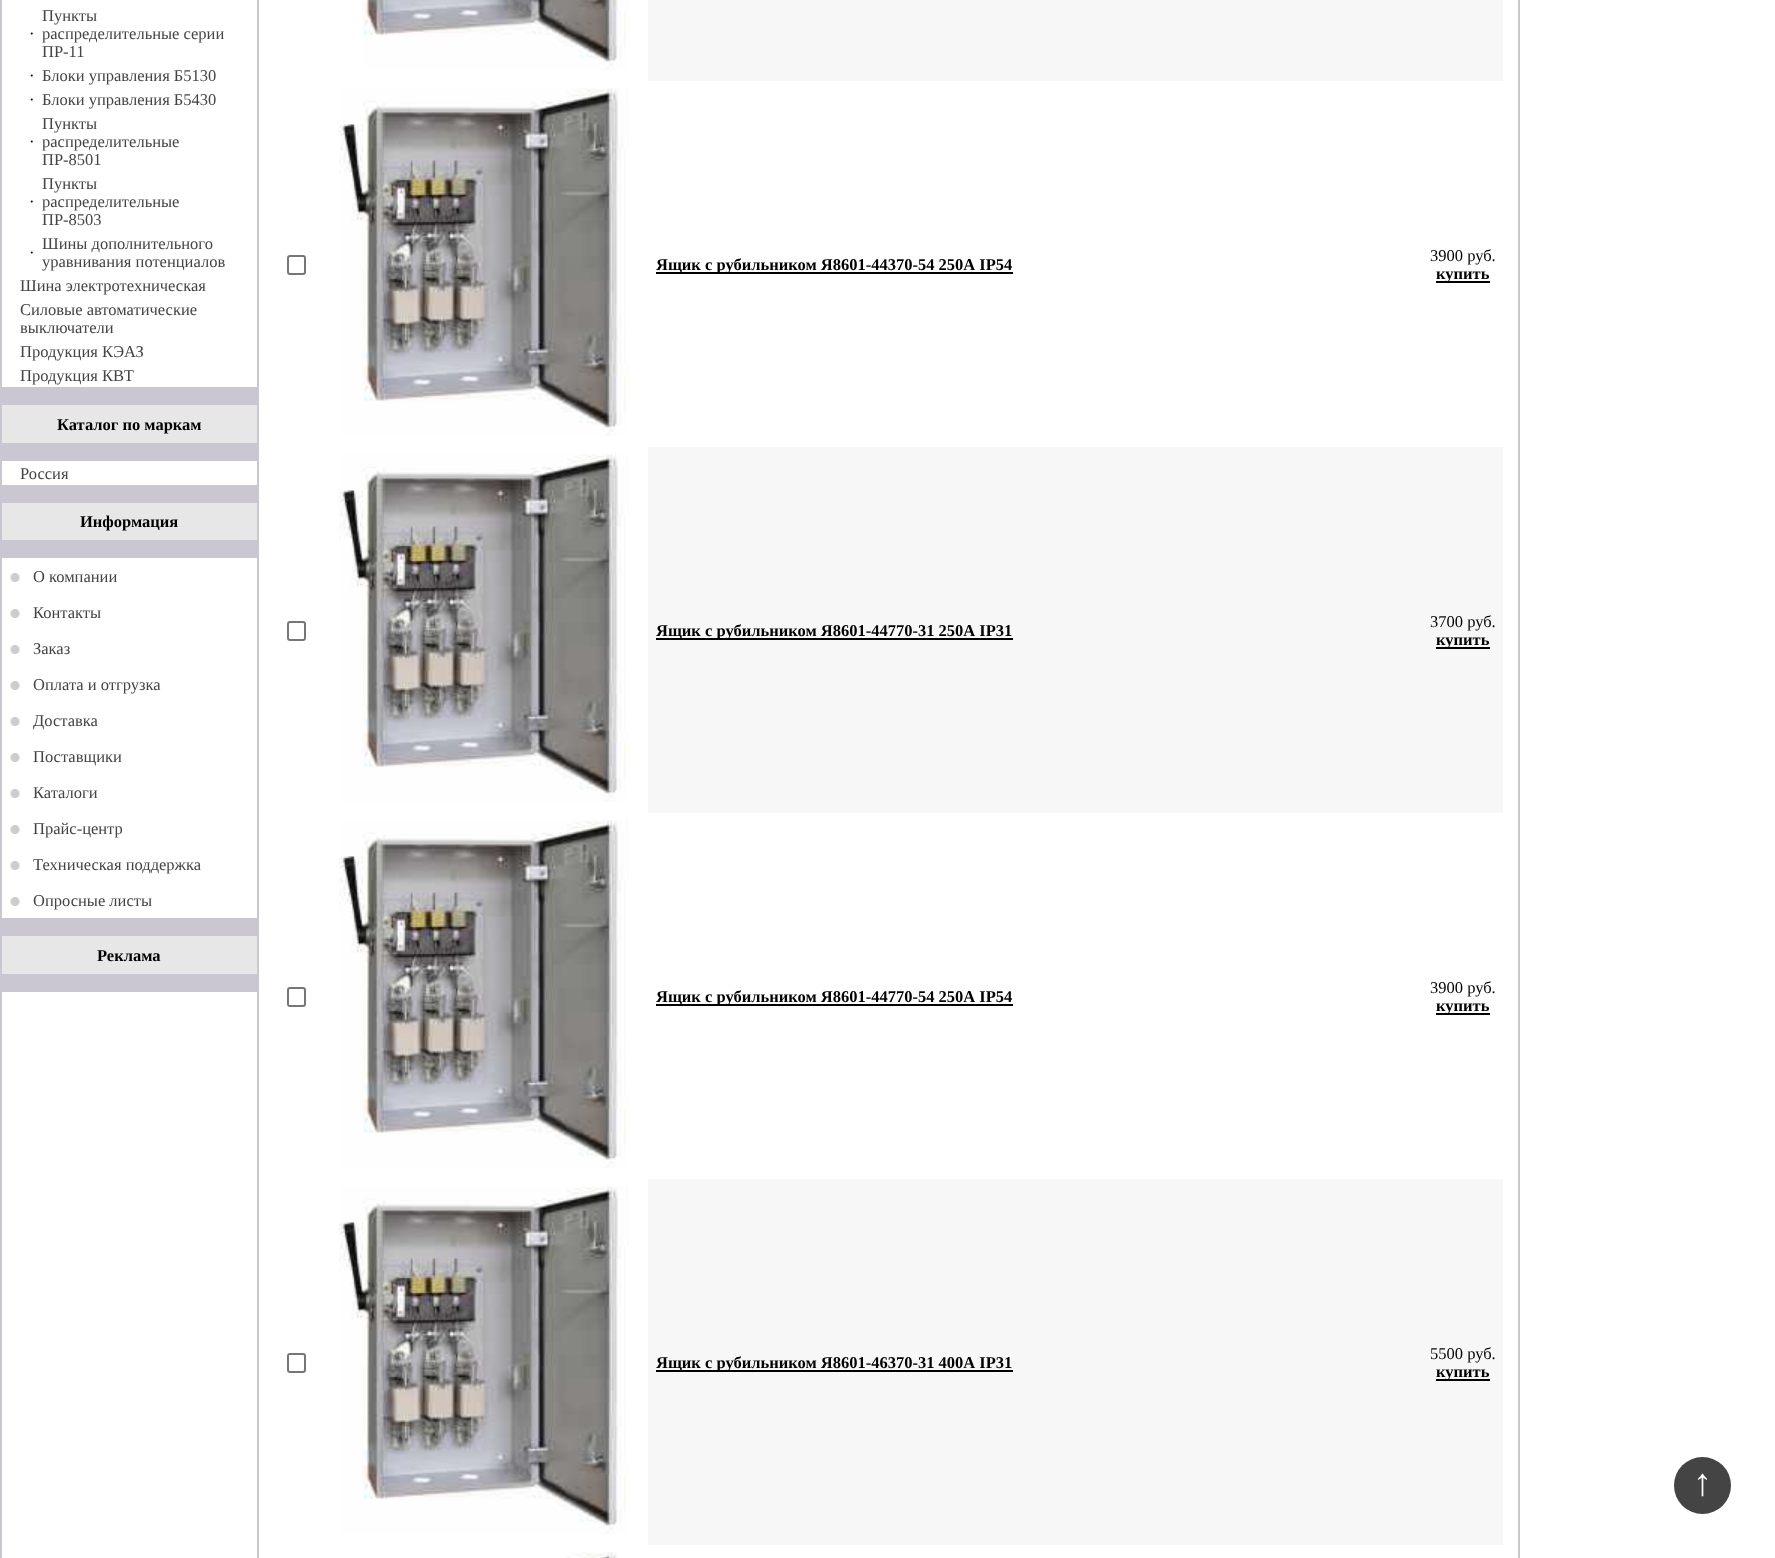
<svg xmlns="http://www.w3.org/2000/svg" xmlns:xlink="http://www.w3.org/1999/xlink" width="1775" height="1558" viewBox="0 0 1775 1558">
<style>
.cls-1{font:16.5px Liberation Serif;fill:#000000}
.cls-2{font:16.5px Liberation Serif;fill:#444444}
.cls-3{font:bold 16.5px Liberation Serif;fill:#000000}
.cls-4{font:38px Liberation Sans;fill:#ffffff}
</style>
<rect width="100%" height="100%" fill="#ffffff"/>
<rect fill="#cac7d3" x="0" y="0" width="2" height="1558"/>
<rect fill="#cac7d3" x="2" y="387" width="255" height="18"/>
<rect fill="#e7e7e7" x="2" y="405" width="255" height="38"/>
<rect fill="#cac7d3" x="2" y="443" width="255" height="18"/>
<rect fill="#cac7d3" x="2" y="485" width="255" height="18"/>
<rect fill="#e7e7e7" x="2" y="503" width="255" height="37"/>
<rect fill="#cac7d3" x="2" y="540" width="255" height="18"/>
<image xlink:href="image0.png" x="10" y="573" width="10" height="9"/>
<image xlink:href="image0.png" x="10" y="609" width="10" height="9"/>
<image xlink:href="image0.png" x="10" y="645" width="10" height="9"/>
<image xlink:href="image0.png" x="10" y="681" width="10" height="9"/>
<image xlink:href="image0.png" x="10" y="717" width="10" height="9"/>
<image xlink:href="image0.png" x="10" y="753" width="10" height="9"/>
<image xlink:href="image0.png" x="10" y="789" width="10" height="9"/>
<image xlink:href="image0.png" x="10" y="825" width="10" height="9"/>
<image xlink:href="image0.png" x="10" y="861" width="10" height="9"/>
<image xlink:href="image0.png" x="10" y="897" width="10" height="9"/>
<rect fill="#cac7d3" x="2" y="918" width="255" height="18"/>
<rect fill="#e7e7e7" x="2" y="936" width="255" height="38"/>
<rect fill="#cac7d3" x="2" y="974" width="255" height="18"/>
<rect fill="#cac7d3" x="257" y="0" width="2" height="1558"/>
<image xlink:href="image1.png" x="362" y="0" width="267" height="70"/>
<rect fill="#f7f7f7" x="648" y="0" width="855" height="81"/>
<rect fill="none" stroke="#767676" stroke-width="2" x="288" y="256" width="17" height="18" rx="2"/>
<image xlink:href="image2.png" x="339" y="88" width="290" height="348"/>
<rect fill="#000000" x="656" y="272" width="357" height="2"/>
<rect fill="#000000" x="1436" y="281" width="54" height="2"/>
<rect fill="none" stroke="#767676" stroke-width="2" x="288" y="622" width="17" height="18" rx="2"/>
<image xlink:href="image2.png" x="339" y="454" width="290" height="348"/>
<rect fill="#f7f7f7" x="648" y="447" width="855" height="366"/>
<rect fill="#000000" x="656" y="638" width="357" height="2"/>
<rect fill="#000000" x="1436" y="647" width="54" height="2"/>
<rect fill="none" stroke="#767676" stroke-width="2" x="288" y="988" width="17" height="18" rx="2"/>
<image xlink:href="image2.png" x="339" y="820" width="290" height="348"/>
<rect fill="#000000" x="656" y="1004" width="357" height="2"/>
<rect fill="#000000" x="1436" y="1013" width="54" height="2"/>
<rect fill="none" stroke="#767676" stroke-width="2" x="288" y="1354" width="17" height="18" rx="2"/>
<image xlink:href="image2.png" x="339" y="1186" width="290" height="348"/>
<rect fill="#f7f7f7" x="648" y="1179" width="855" height="366"/>
<rect fill="#000000" x="656" y="1370" width="357" height="2"/>
<rect fill="#000000" x="1436" y="1379" width="54" height="2"/>
<image xlink:href="image3.png" x="567" y="1552" width="51" height="6"/>
<rect fill="#cac7d3" x="1518" y="0" width="2" height="1558"/>
<circle fill="#444444" cx="1702.5" cy="1485.5" r="28.5"/>
<text class="cls-1" x="29" y="39">·</text>
<text class="cls-2"><tspan x="42" y="21">Пункты</tspan><tspan x="42" y="39">распределительные серии</tspan><tspan x="42" y="57">ПР-11</tspan></text>
<text class="cls-1" x="29" y="81">·</text>
<text class="cls-2" x="42" y="81">Блоки управления Б5130</text>
<text class="cls-1" x="29" y="105">·</text>
<text class="cls-2" x="42" y="105">Блоки управления Б5430</text>
<text class="cls-1" x="29" y="147">·</text>
<text class="cls-2"><tspan x="42" y="129">Пункты</tspan><tspan x="42" y="147">распределительные</tspan><tspan x="42" y="165">ПР-8501</tspan></text>
<text class="cls-1" x="29" y="207">·</text>
<text class="cls-2"><tspan x="42" y="189">Пункты</tspan><tspan x="42" y="207">распределительные</tspan><tspan x="42" y="225">ПР-8503</tspan></text>
<text class="cls-1" x="29" y="258">·</text>
<text class="cls-2"><tspan x="42" y="249">Шины дополнительного</tspan><tspan x="42" y="267">уравнивания потенциалов</tspan></text>
<text class="cls-2"><tspan x="20" y="291">Шина электротехническая</tspan><tspan x="20" y="315">Силовые автоматические</tspan><tspan x="20" y="333">выключатели</tspan><tspan x="20" y="357">Продукция КЭАЗ</tspan><tspan x="20" y="381">Продукция КВТ</tspan></text>
<text class="cls-3" x="57" y="430">Каталог по маркам</text>
<text class="cls-2" x="20" y="479">Россия</text>
<text class="cls-3" x="80" y="527">Информация</text>
<text class="cls-2" x="33" y="582">О компании</text>
<text class="cls-2" x="33" y="618">Контакты</text>
<text class="cls-2" x="33" y="654">Заказ</text>
<text class="cls-2" x="33" y="690">Оплата и отгрузка</text>
<text class="cls-2" x="33" y="726">Доставка</text>
<text class="cls-2" x="33" y="762">Поставщики</text>
<text class="cls-2" x="33" y="798">Каталоги</text>
<text class="cls-2" x="33" y="834">Прайс-центр</text>
<text class="cls-2" x="33" y="870">Техническая поддержка</text>
<text class="cls-2" x="33" y="906">Опросные листы</text>
<text class="cls-3" x="97" y="961">Реклама</text>
<text class="cls-3" x="656" y="270">Ящик с рубильником Я8601-44370-54 250А IP54</text>
<text class="cls-1" x="1430" y="261">3900 руб.</text>
<text class="cls-3" x="1436" y="279">купить</text>
<text class="cls-3" x="656" y="636">Ящик с рубильником Я8601-44770-31 250А IP31</text>
<text class="cls-1" x="1430" y="627">3700 руб.</text>
<text class="cls-3" x="1436" y="645">купить</text>
<text class="cls-3" x="656" y="1002">Ящик с рубильником Я8601-44770-54 250А IP54</text>
<text class="cls-1" x="1430" y="993">3900 руб.</text>
<text class="cls-3" x="1436" y="1011">купить</text>
<text class="cls-3" x="656" y="1368">Ящик с рубильником Я8601-46370-31 400А IP31</text>
<text class="cls-1" x="1430" y="1359">5500 руб.</text>
<text class="cls-3" x="1436" y="1377">купить</text>
<text class="cls-4" x="1693" y="1495">↑</text>
</svg>
